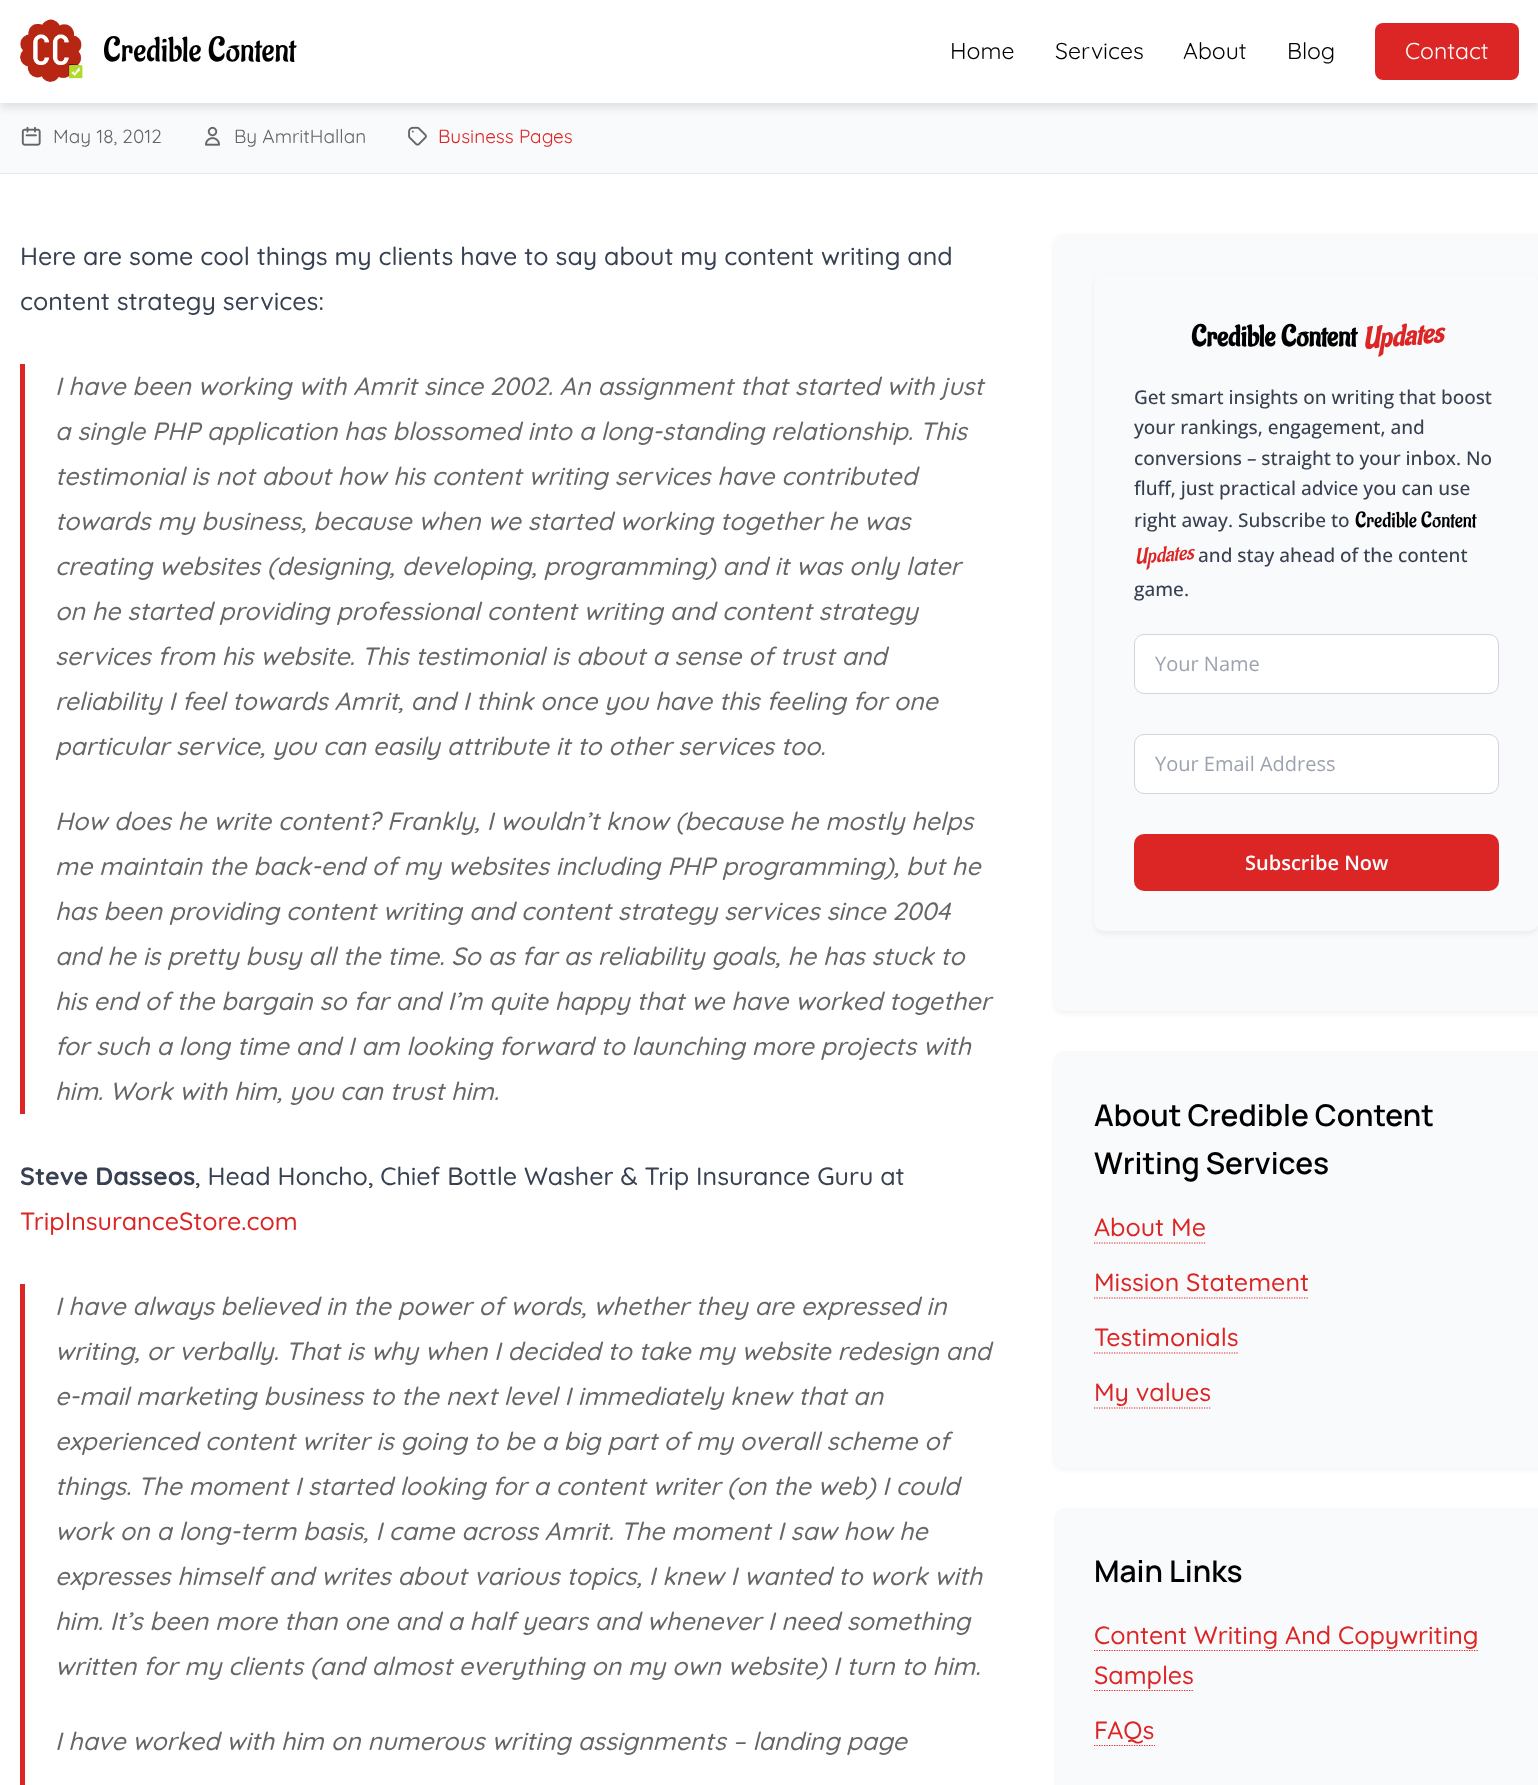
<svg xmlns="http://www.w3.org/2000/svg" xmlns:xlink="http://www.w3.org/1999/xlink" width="1538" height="1785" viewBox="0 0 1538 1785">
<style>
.cls-1{font:35px Aladin;fill:#000000}
.cls-2{font:23px Quicksand;fill:#000000}
.cls-3{font:23px Quicksand;fill:#ffffff}
.cls-4{font:19px Quicksand;fill:#666666}
.cls-5{font:19px Quicksand;fill:#dc2626}
.cls-6{font:500 25px Quicksand;fill:#374151}
.cls-7{font:italic 500 25px Quicksand;fill:#666666}
.cls-8{font:bold 25px Quicksand;fill:#374151}
.cls-9{font:500 25px Quicksand;fill:#dc2626}
.cls-10{font:bold 30px Aladin;fill:#000000}
.cls-11{font:italic bold 30px Aladin;fill:#dc2626}
.cls-12{font:500 19px Open Sans;fill:#374151}
.cls-13{font:22px Aladin;fill:#000000}
.cls-14{font:italic 22px Aladin;fill:#dc2626}
.cls-15{font:20px Open Sans;fill:#9ca3af}
.cls-16{font:600 20px Open Sans;fill:#ffffff}
.cls-17{font:600 30px Manrope;fill:#000000}
</style>
<rect width="100%" height="100%" fill="#ffffff"/>
<rect fill="#f9fafb" x="0" y="103" width="1538" height="70"/>
<rect fill="#000000" fill-opacity="0.1" filter="blur(4px)" x="0" y="5" width="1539" height="103"/>
<rect fill="#ffffff" x="0" y="0" width="1538" height="103"/>
<image xlink:href="image0.png" x="20" y="19" width="63" height="63"/>
<rect fill="#dc2626" x="1375" y="23" width="144" height="57" rx="8"/>
<rect fill="#e5e7eb" x="0" y="173" width="1538" height="1"/>
<image xlink:href="image1.png" x="21" y="126" width="20" height="20"/>
<image xlink:href="image2.png" x="205" y="126" width="15" height="20"/>
<image xlink:href="image3.png" x="408" y="126" width="19" height="20"/>
<rect fill="#dc2626" x="20" y="364" width="5" height="750"/>
<rect fill="#dc2626" x="20" y="1284" width="5" height="501"/>
<rect fill="#000000" fill-opacity="0.05" filter="blur(2.5px)" x="1054" y="236" width="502" height="778" rx="10"/>
<rect fill="#f9fafb" x="1054" y="234" width="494" height="777" rx="10"/>
<rect fill="#000000" fill-opacity="0.05" filter="blur(2.5px)" x="1094" y="276" width="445" height="658" rx="10"/>
<rect fill="#f9fafb" x="1094" y="274" width="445" height="657" rx="10"/>
<rect fill="#ffffff" stroke="#d1d5db" x="1134.5" y="634.5" width="364" height="59" rx="9.5"/>
<rect fill="#ffffff" stroke="#d1d5db" x="1134.5" y="734.5" width="364" height="59" rx="9.5"/>
<rect fill="#dc2626" x="1134" y="834" width="365" height="57" rx="10"/>
<rect fill="#000000" fill-opacity="0.05" filter="blur(2.5px)" x="1054" y="1054" width="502" height="416" rx="10"/>
<rect fill="#f9fafb" x="1054" y="1051" width="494" height="417" rx="10"/>
<path fill="none" stroke="#dc2626" stroke-width="1.2" stroke-dasharray="1.25 1.25" d="M1094 1243H1206"/>
<path fill="none" stroke="#dc2626" stroke-width="1.2" stroke-dasharray="1.25 1.25" d="M1094 1298H1309"/>
<path fill="none" stroke="#dc2626" stroke-width="1.2" stroke-dasharray="1.25 1.25" d="M1094 1353H1239"/>
<path fill="none" stroke="#dc2626" stroke-width="1.2" stroke-dasharray="1.25 1.25" d="M1094 1408H1211"/>
<rect fill="#f9fafb" x="1054" y="1508" width="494" height="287" rx="10"/>
<path fill="none" stroke="#dc2626" stroke-width="1.2" stroke-dasharray="1.25 1.25" d="M1094 1650.5H1479"/>
<path fill="none" stroke="#dc2626" stroke-width="1.2" stroke-dasharray="1.25 1.25" d="M1094 1690.5H1194"/>
<path fill="none" stroke="#dc2626" stroke-width="1.2" stroke-dasharray="1.25 1.25" d="M1094 1745.5H1155"/>
<text class="cls-1" x="103" y="61">Credible Content</text>
<text class="cls-2" x="950" y="59">Home</text>
<text class="cls-2" x="1055" y="59">Services</text>
<text class="cls-2" x="1183" y="59">About</text>
<text class="cls-2" x="1287" y="59">Blog</text>
<text class="cls-3" x="1405" y="59">Contact</text>
<text class="cls-4" x="53" y="143">May 18, 2012</text>
<text class="cls-4" x="234" y="143">By AmritHallan</text>
<text class="cls-5" x="438" y="143">Business Pages</text>
<text class="cls-6"><tspan x="20" y="265">Here are some cool things my clients have to say about my content writing and</tspan><tspan x="20" y="310">content strategy services:</tspan></text>
<text class="cls-7"><tspan x="55" y="395">I have been working with Amrit since 2002. An assignment that started with just</tspan><tspan x="55" y="440">a single PHP application has blossomed into a long-standing relationship. This</tspan><tspan x="55" y="485">testimonial is not about how his content writing services have contributed</tspan><tspan x="55" y="530">towards my business, because when we started working together he was</tspan><tspan x="55" y="575">creating websites (designing, developing, programming) and it was only later</tspan><tspan x="55" y="620">on he started providing professional content writing and content strategy</tspan><tspan x="55" y="665">services from his website. This testimonial is about a sense of trust and</tspan><tspan x="55" y="710">reliability I feel towards Amrit, and I think once you have this feeling for one</tspan><tspan x="55" y="755">particular service, you can easily attribute it to other services too.</tspan></text>
<text class="cls-7"><tspan x="55" y="830">How does he write content? Frankly, I wouldn’t know (because he mostly helps</tspan><tspan x="55" y="875">me maintain the back-end of my websites including PHP programming), but he</tspan><tspan x="55" y="920">has been providing content writing and content strategy services since 2004</tspan><tspan x="55" y="965">and he is pretty busy all the time. So as far as reliability goals, he has stuck to</tspan><tspan x="55" y="1010">his end of the bargain so far and I’m quite happy that we have worked together</tspan><tspan x="55" y="1055">for such a long time and I am looking forward to launching more projects with</tspan><tspan x="55" y="1100">him. Work with him, you can trust him.</tspan></text>
<text class="cls-8" x="20" y="1185">Steve Dasseos</text>
<text class="cls-6" x="195" y="1185">, Head Honcho, Chief Bottle Washer &amp; Trip Insurance Guru at</text>
<text class="cls-9" x="20" y="1230">TripInsuranceStore.com</text>
<text class="cls-7"><tspan x="55" y="1315">I have always believed in the power of words, whether they are expressed in</tspan><tspan x="55" y="1360">writing, or verbally. That is why when I decided to take my website redesign and</tspan><tspan x="55" y="1405">e-mail marketing business to the next level I immediately knew that an</tspan><tspan x="55" y="1450">experienced content writer is going to be a big part of my overall scheme of</tspan><tspan x="55" y="1495">things. The moment I started looking for a content writer (on the web) I could</tspan><tspan x="55" y="1540">work on a long-term basis, I came across Amrit. The moment I saw how he</tspan><tspan x="55" y="1585">expresses himself and writes about various topics, I knew I wanted to work with</tspan><tspan x="55" y="1630">him. It’s been more than one and a half years and whenever I need something</tspan><tspan x="55" y="1675">written for my clients (and almost everything on my own website) I turn to him.</tspan></text>
<text class="cls-7" x="55" y="1750">I have worked with him on numerous writing assignments – landing page</text>
<text class="cls-10" x="1191" y="346">Credible Content</text>
<text class="cls-11" x="1363" y="349" transform="rotate(-5 1363 349)">Updates</text>
<text class="cls-12"><tspan x="1134" y="404">Get smart insights on writing that boost</tspan><tspan x="1134" y="434">your rankings, engagement, and</tspan><tspan x="1134" y="465">conversions – straight to your inbox. No</tspan><tspan x="1134" y="495">fluff, just practical advice you can use</tspan><tspan x="1134" y="527">right away. Subscribe to</tspan></text>
<text class="cls-13" x="1355" y="527">Credible Content</text>
<text class="cls-14" x="1135" y="564" transform="rotate(-5 1135 564)">Updates</text>
<text class="cls-12" x="1198" y="562">and stay ahead of the content</text>
<text class="cls-12" x="1134" y="596">game.</text>
<text class="cls-15" x="1155" y="671">Your Name</text>
<text class="cls-15" x="1155" y="771">Your Email Address</text>
<text class="cls-16" x="1245" y="870">Subscribe Now</text>
<text class="cls-17"><tspan x="1094" y="1126">About Credible Content</tspan><tspan x="1094" y="1174">Writing Services</tspan></text>
<text class="cls-9" x="1094" y="1236">About Me</text>
<text class="cls-9" x="1094" y="1291">Mission Statement</text>
<text class="cls-9" x="1094" y="1346">Testimonials</text>
<text class="cls-9" x="1094" y="1401">My values</text>
<text class="cls-17" x="1094" y="1582">Main Links</text>
<text class="cls-9"><tspan x="1094" y="1644">Content Writing And Copywriting</tspan><tspan x="1094" y="1684">Samples</tspan></text>
<text class="cls-9" x="1094" y="1739">FAQs</text>
</svg>
